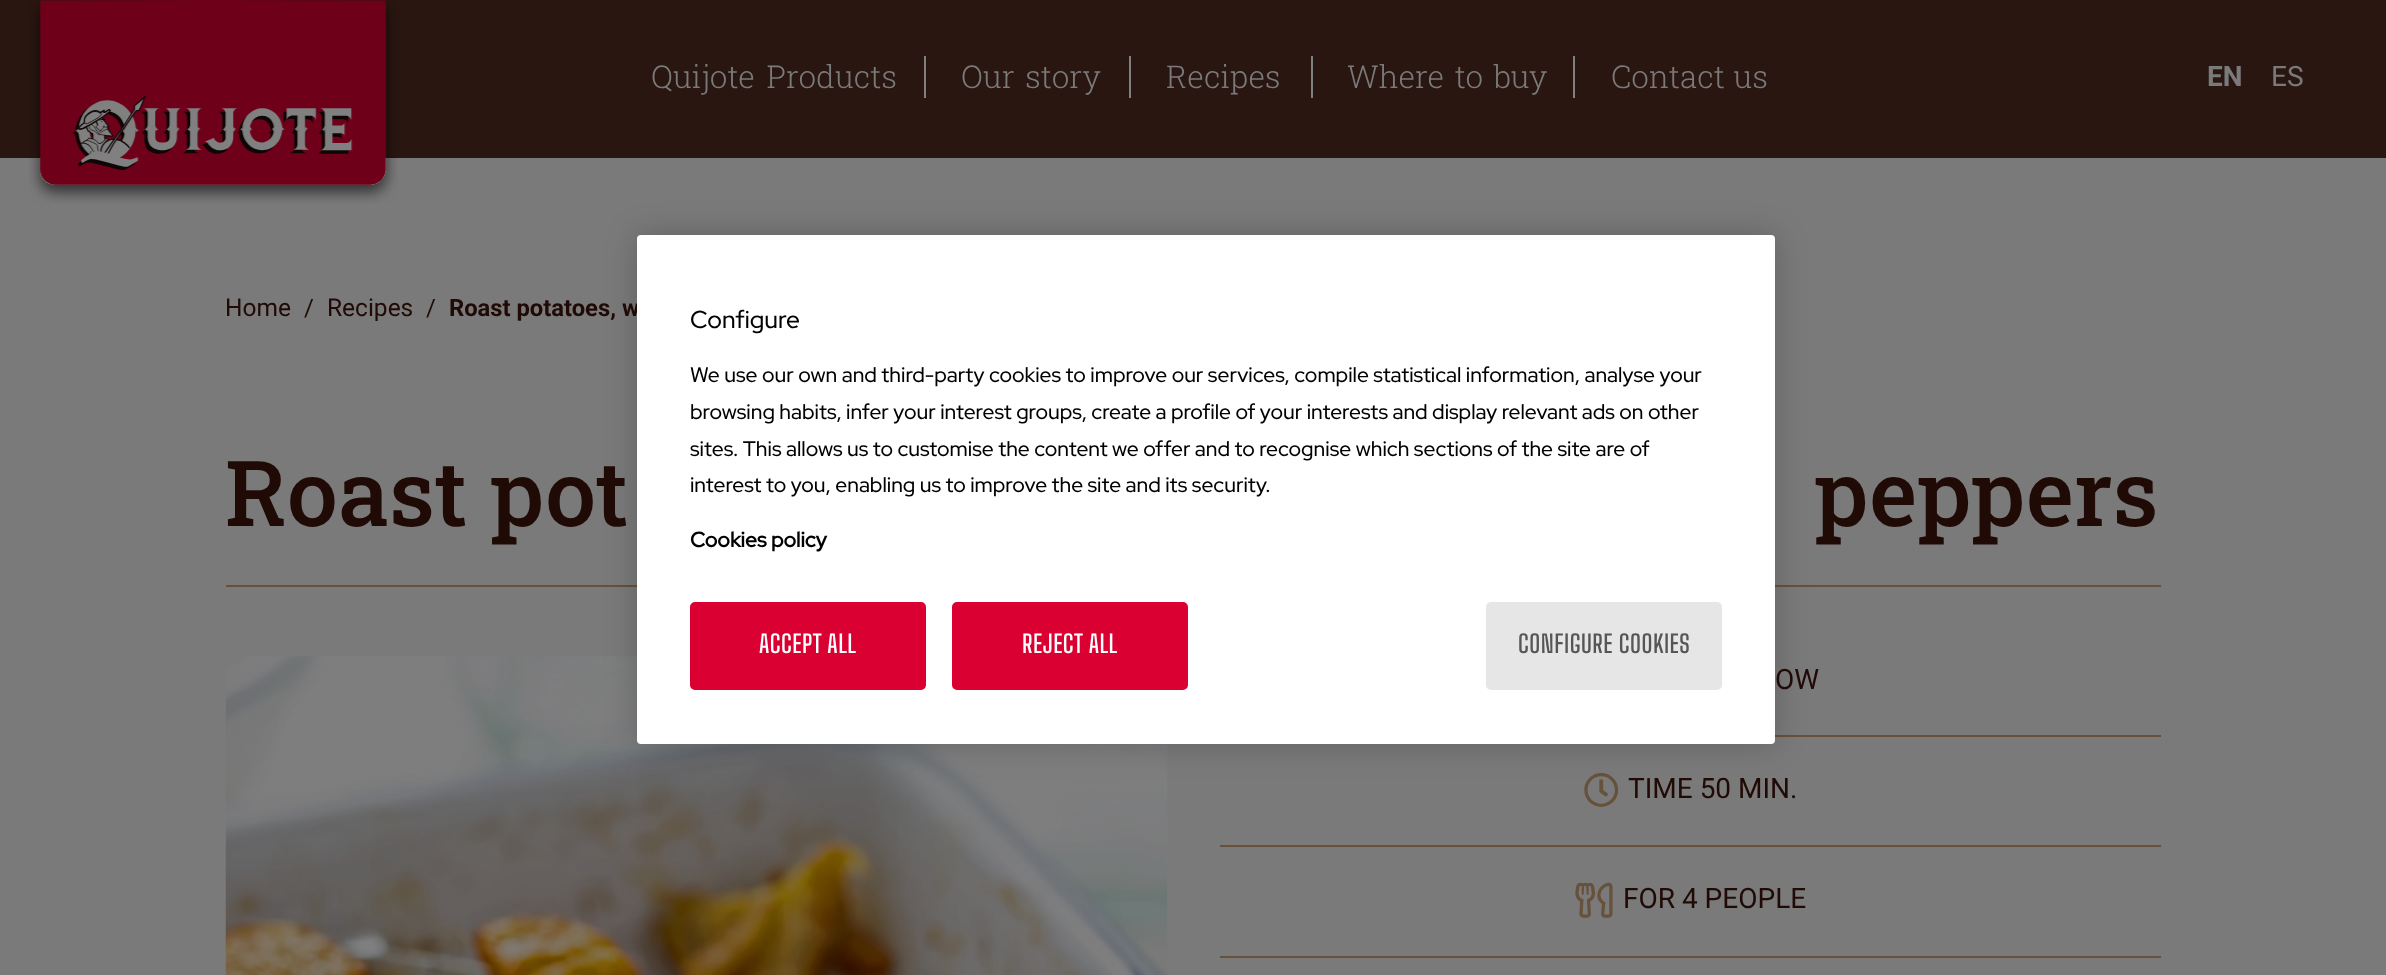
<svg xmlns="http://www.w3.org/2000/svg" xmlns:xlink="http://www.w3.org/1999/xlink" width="2386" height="975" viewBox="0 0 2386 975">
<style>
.cls-1{font:300 31.5px Roboto Slab;fill:#7b7a7b}
.cls-2{font:bold 28px Roboto;fill:#7b7a7b}
.cls-3{font:28px Roboto;fill:#7b7a7b}
.cls-4{font:24.5px Roboto;fill:#200a05}
.cls-5{font:23.75px Roboto;fill:#200a05}
.cls-6{font:bold 23.75px Roboto;fill:#200a05}
.cls-7{font:500 91px Roboto Slab;fill:#200a05}
.cls-8{font:28px Roboto;fill:#200a05}
.cls-9{font:500 24.5px Red Hat Display;fill:#000000}
.cls-10{font:500 21px Red Hat Display;fill:#000000}
.cls-11{font:bold 21px Red Hat Display;fill:#000000}
.cls-12{font:100 24.5px Big Shoulders Text;letter-spacing:0.5px;fill:#ffffff}
.cls-13{font:100 24.5px Big Shoulders Text;letter-spacing:0.5px;fill:#565656}
</style>
<rect width="100%" height="100%" fill="#7b7a7b"/>
<rect fill="#2a1611" x="0" y="0" width="2386" height="158"/>
<image xlink:href="image0.png" x="29" y="0" width="369" height="204"/>
<rect fill="#808080" x="924" y="56" width="2" height="42"/>
<rect fill="#808080" x="1129" y="56" width="2" height="42"/>
<rect fill="#808080" x="1311" y="56" width="2" height="42"/>
<rect fill="#808080" x="1573" y="56" width="2" height="42"/>
<rect fill="#67513a" x="226" y="585" width="1935" height="2"/>
<image xlink:href="image1.png" x="225" y="656" width="943" height="319"/>
<rect fill="#67513a" x="1775" y="735" width="386" height="2"/>
<rect fill="#67513a" x="1220" y="845" width="941" height="2"/>
<image xlink:href="image2.png" x="1584" y="773" width="35" height="34"/>
<rect fill="#67513a" x="1220" y="956" width="941" height="2"/>
<image xlink:href="image3.png" x="1575" y="882" width="38" height="36"/>
<rect fill="#000000" fill-opacity="0.2" filter="blur(16px)" x="637" y="235" width="1138" height="509" rx="4"/>
<text class="cls-1" x="651" y="88" word-spacing="4">Quijote Products</text>
<text class="cls-1" x="961" y="88" word-spacing="3">Our story</text>
<text class="cls-1" x="1166" y="88">Recipes</text>
<text class="cls-1" x="1347" y="88" word-spacing="3">Where to buy</text>
<text class="cls-1" x="1611" y="88" word-spacing="1">Contact us</text>
<text class="cls-2" x="2207" y="86">EN</text>
<text class="cls-3" x="2271" y="86">ES</text>
<text class="cls-4" x="225" y="316">Home</text>
<text class="cls-5" x="304" y="316">/</text>
<text class="cls-4" x="327" y="316">Recipes</text>
<text class="cls-5" x="426" y="316">/</text>
<text class="cls-6" x="449" y="316">Roast potatoes, w</text>
<text class="cls-7" x="225" y="526">Roast pot</text>
<text class="cls-7" x="1814" y="526">peppers</text>
<text class="cls-8" x="1775" y="689">OW</text>
<text class="cls-8" x="1628" y="798">TIME 50 MIN.</text>
<text class="cls-8" x="1623" y="908">FOR 4 PEOPLE</text>
<rect fill="#ffffff" x="637" y="235" width="1138" height="509" rx="4"/>
<text class="cls-9" x="690" y="328">Configure</text>
<text class="cls-10"><tspan x="690" y="382">We use our own and third-party cookies to improve our services, compile statistical information, analyse your</tspan><tspan x="690" y="419">browsing habits, infer your interest groups, create a profile of your interests and display relevant ads on other</tspan><tspan x="690" y="456">sites. This allows us to customise the content we offer and to recognise which sections of the site are of</tspan><tspan x="690" y="492">interest to you, enabling us to improve the site and its security.</tspan></text>
<text class="cls-11" x="690" y="547">Cookies policy</text>
<rect fill="#db0032" stroke="#db0032" stroke-width="2" x="691" y="603" width="234" height="86" rx="4"/>
<text class="cls-12" x="759" y="653">ACCEPT ALL</text>
<rect fill="#db0032" stroke="#db0032" stroke-width="2" x="953" y="603" width="234" height="86" rx="4"/>
<text class="cls-12" x="1022" y="653">REJECT ALL</text>
<rect fill="#e6e6e6" x="1486" y="602" width="236" height="88" rx="5"/>
<text class="cls-13" x="1518" y="653">CONFIGURE COOKIES</text>
</svg>
